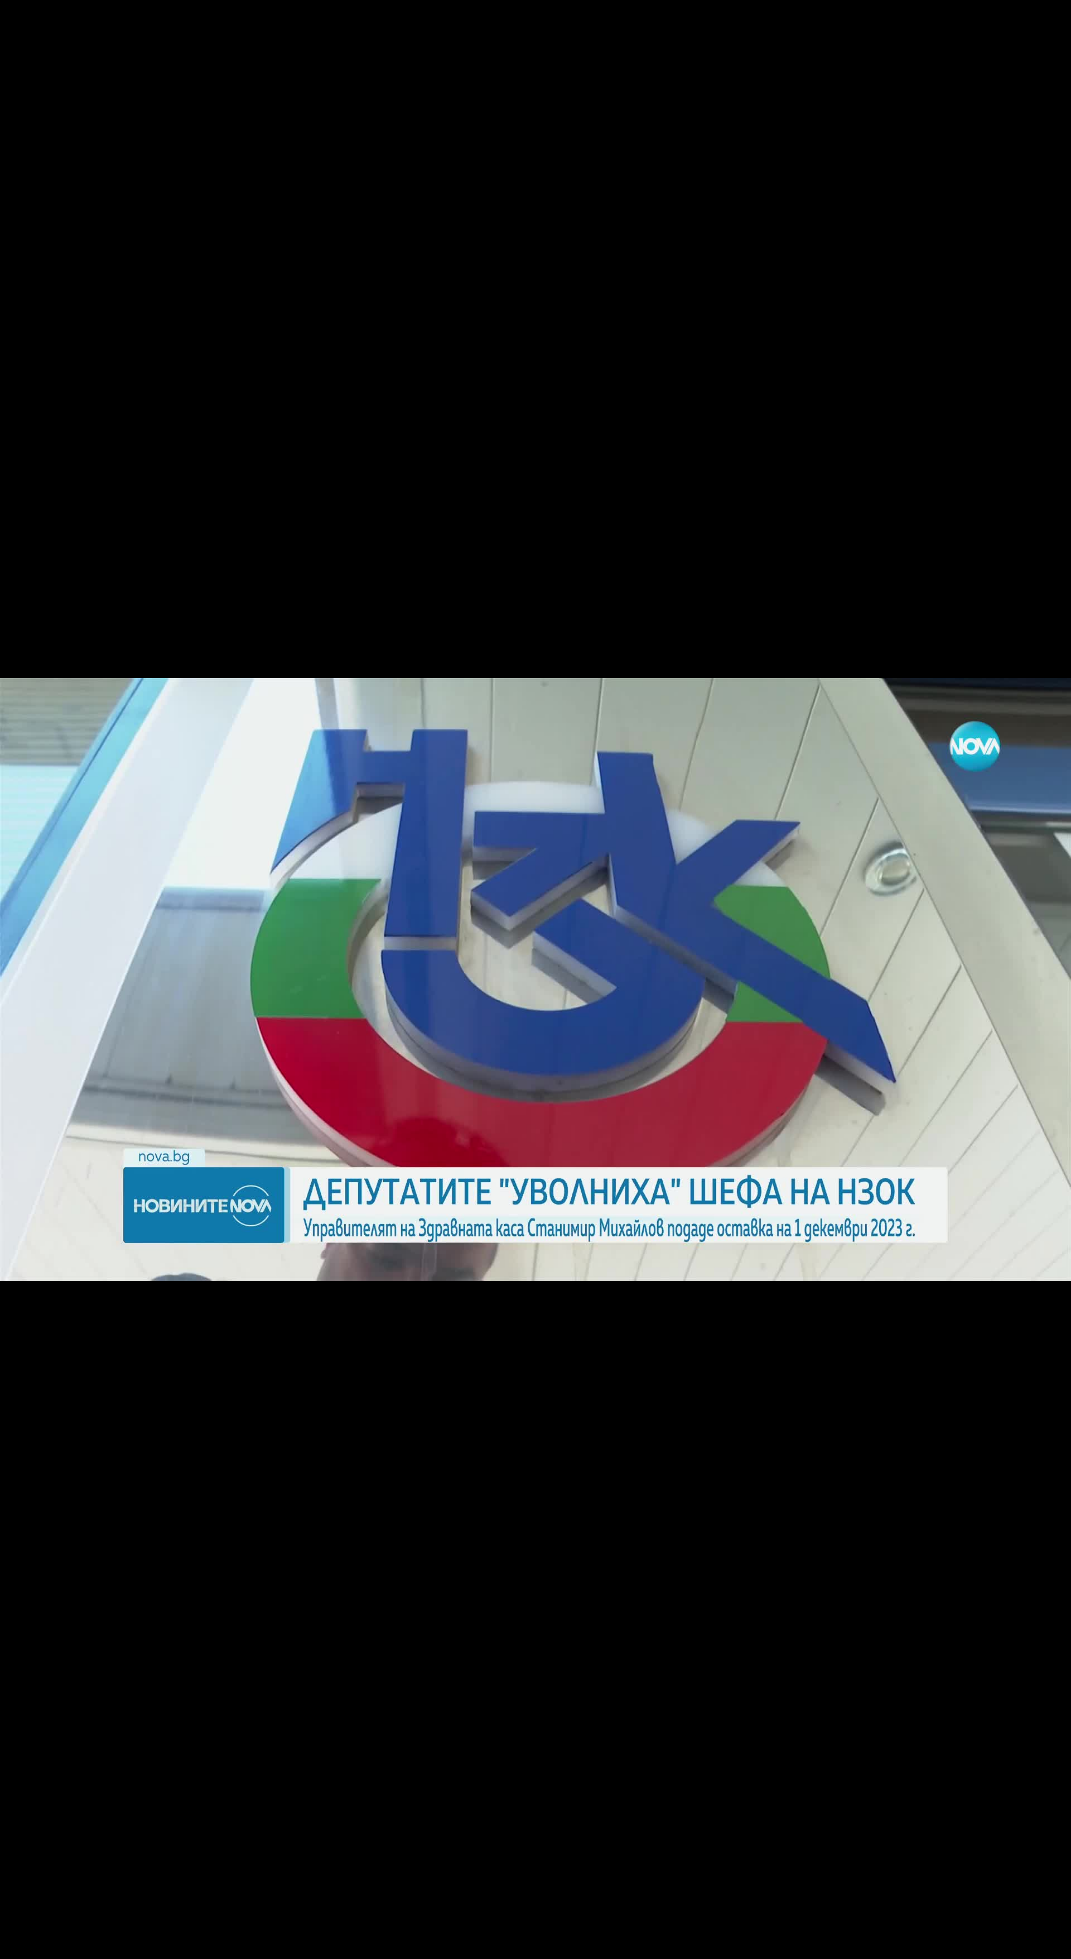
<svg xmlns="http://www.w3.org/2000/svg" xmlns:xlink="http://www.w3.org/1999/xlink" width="1071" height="1959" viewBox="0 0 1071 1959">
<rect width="100%" height="100%" fill="#000000"/>
<image xlink:href="image0.png" x="0" y="678" width="1071" height="603"/>
</svg>
